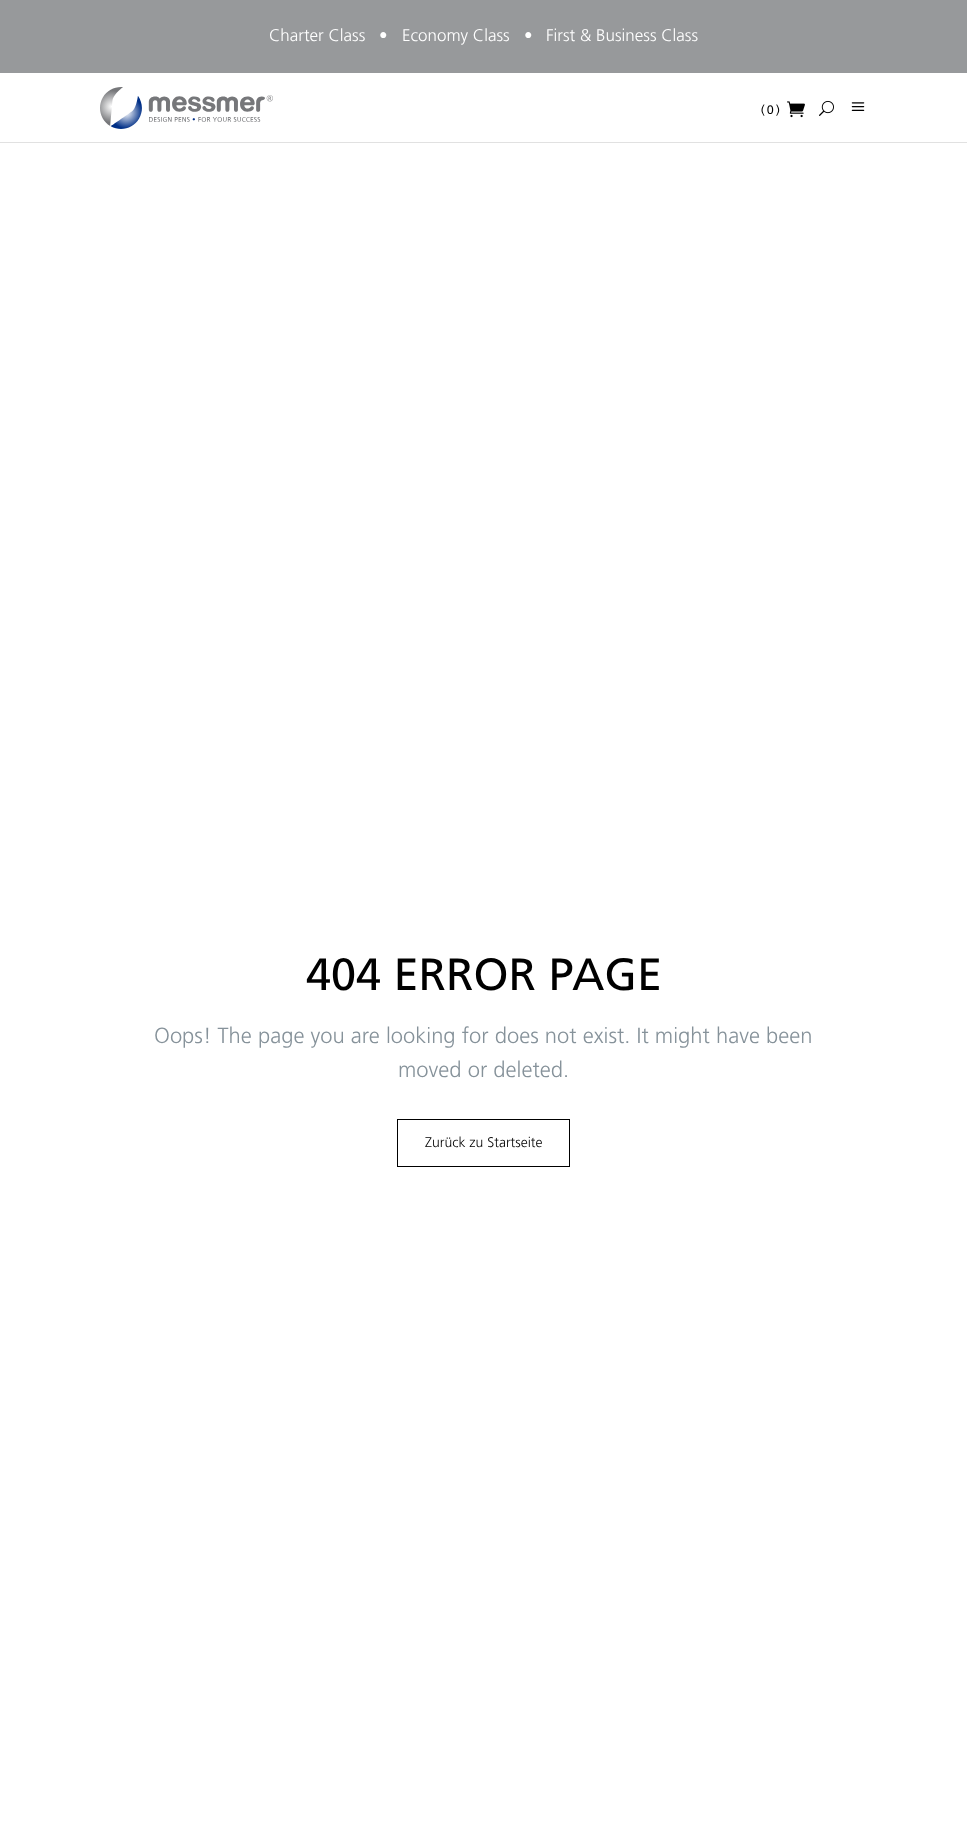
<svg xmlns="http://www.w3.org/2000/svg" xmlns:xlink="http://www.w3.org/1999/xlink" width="967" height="1826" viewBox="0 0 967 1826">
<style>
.cls-1{font:17px 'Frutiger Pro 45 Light';fill:#ffffff}
.cls-2{font:bold 12px 'Frutiger Pro 45 Light';letter-spacing:2.5px;fill:#000000}
.cls-3{font:45px 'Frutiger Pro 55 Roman';fill:#000000}
.cls-4{font:22px 'Frutiger Pro 45 Light';fill:#86929a}
.cls-5{font:14px 'Frutiger Pro 45 Light';fill:#000000}
</style>
<rect width="100%" height="100%" fill="#ffffff"/>
<rect fill="#97999b" x="0" y="0" width="967" height="73"/>
<rect fill="#e1e1e1" x="0" y="142" width="967" height="1"/>
<image xlink:href="image0.png" x="100" y="87" width="173" height="42"/>
<image xlink:href="image1.png" x="787" y="101" width="18" height="17"/>
<image xlink:href="image2.png" x="819" y="100" width="15" height="16"/>
<image xlink:href="image3.png" x="851" y="102" width="14" height="9"/>
<rect fill="none" stroke="#000000" x="397.5" y="1119.5" width="172" height="47"/>
<text class="cls-1" x="269" y="41">Charter Class</text>
<text class="cls-1" x="379" y="41">•</text>
<text class="cls-1" x="402" y="41">Economy Class</text>
<text class="cls-1" x="524" y="41">•</text>
<text class="cls-1" x="546" y="41">First &amp; Business Class</text>
<text class="cls-2" x="761" y="114">(0)</text>
<text class="cls-3" x="306" y="990">404 ERROR PAGE</text>
<text class="cls-4" x="154" y="1043">Oops! The page you are looking for does not exist. It might have been</text>
<text class="cls-4" x="398" y="1077">moved or deleted.</text>
<text class="cls-5" x="425" y="1147">Zurück zu Startseite</text>
</svg>
